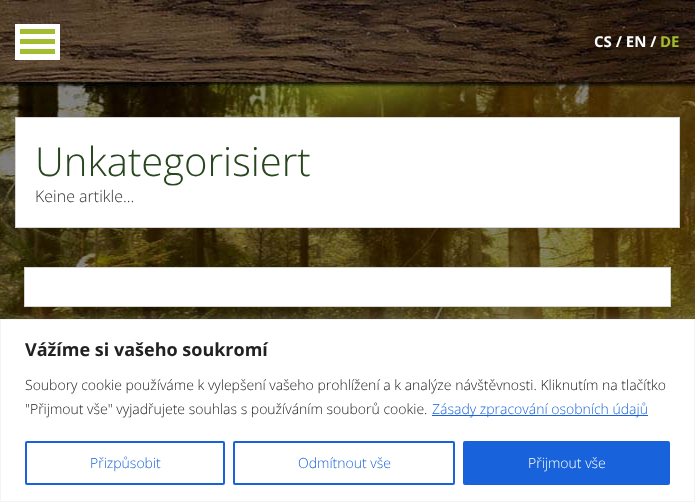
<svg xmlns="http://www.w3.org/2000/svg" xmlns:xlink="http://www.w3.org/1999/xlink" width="695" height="502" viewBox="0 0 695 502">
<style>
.cls-1{font:bold 15px Open Sans;fill:#ffffff}
.cls-2{font:bold 15px Open Sans;fill:#a2bd30}
.cls-3{font:300 40px Open Sans;fill:#27461d}
.cls-4{font:300 16px Open Sans;fill:#333333}
.cls-5{font:bold 18px Open Sans;fill:#212121}
.cls-6{font:300 14px Open Sans;fill:#212121}
.cls-7{font:300 14px Open Sans;fill:#1863dc}
.cls-8{font:300 14px Open Sans;fill:#ffffff}
</style>
<rect width="100%" height="100%" fill="#ffffff"/>
<image xlink:href="image0.png" x="0" y="0" width="695" height="319"/>
<rect fill="#ffffff" x="15" y="24" width="45" height="36"/>
<rect fill="#a2bd30" x="20" y="29" width="35" height="5"/>
<rect fill="#a2bd30" x="20" y="39" width="35" height="5"/>
<rect fill="#a2bd30" x="20" y="49" width="35" height="5"/>
<rect fill="#ffffff" stroke="#d3d4d4" x="15.5" y="117.5" width="664" height="110"/>
<rect fill="#ffffff" stroke="#d3d4d4" x="24.5" y="267.5" width="646" height="39"/>
<rect fill="#acabab" fill-opacity="0.3" filter="blur(5px)" x="0" y="318" width="695" height="183"/>
<rect fill="#ffffff" stroke="#f4f4f4" x="0.5" y="319.5" width="694" height="182"/>
<rect fill="#1863dc" x="432" y="415" width="216" height="1"/>
<rect fill="none" stroke="#1863dc" stroke-width="2" x="26" y="442" width="198" height="42" rx="1"/>
<rect fill="none" stroke="#1863dc" stroke-width="2" x="234" y="442" width="220" height="42" rx="1"/>
<rect fill="#1863dc" stroke="#1863dc" stroke-width="2" x="464" y="442" width="205" height="42" rx="1"/>
<text class="cls-1" x="594" y="47">CS / EN /</text>
<text class="cls-2" x="660" y="47">DE</text>
<text class="cls-3" x="35" y="176">Unkategorisiert</text>
<text class="cls-4" x="35" y="202">Keine artikle...</text>
<text class="cls-5" x="25" y="356">Vážíme si vašeho soukromí</text>
<text class="cls-6"><tspan x="25" y="390">Soubory cookie používáme k vylepšení vašeho prohlížení a k analýze návštěvnosti. Kliknutím na tlačítko</tspan><tspan x="25" y="414">"Přijmout vše" vyjadřujete souhlas s používáním souborů cookie.</tspan></text>
<text class="cls-7" x="432" y="414">Zásady zpracování osobních údajů</text>
<text class="cls-7" x="90" y="468">Přizpůsobit</text>
<text class="cls-7" x="298" y="468">Odmítnout vše</text>
<text class="cls-8" x="528" y="468">Přijmout vše</text>
</svg>
